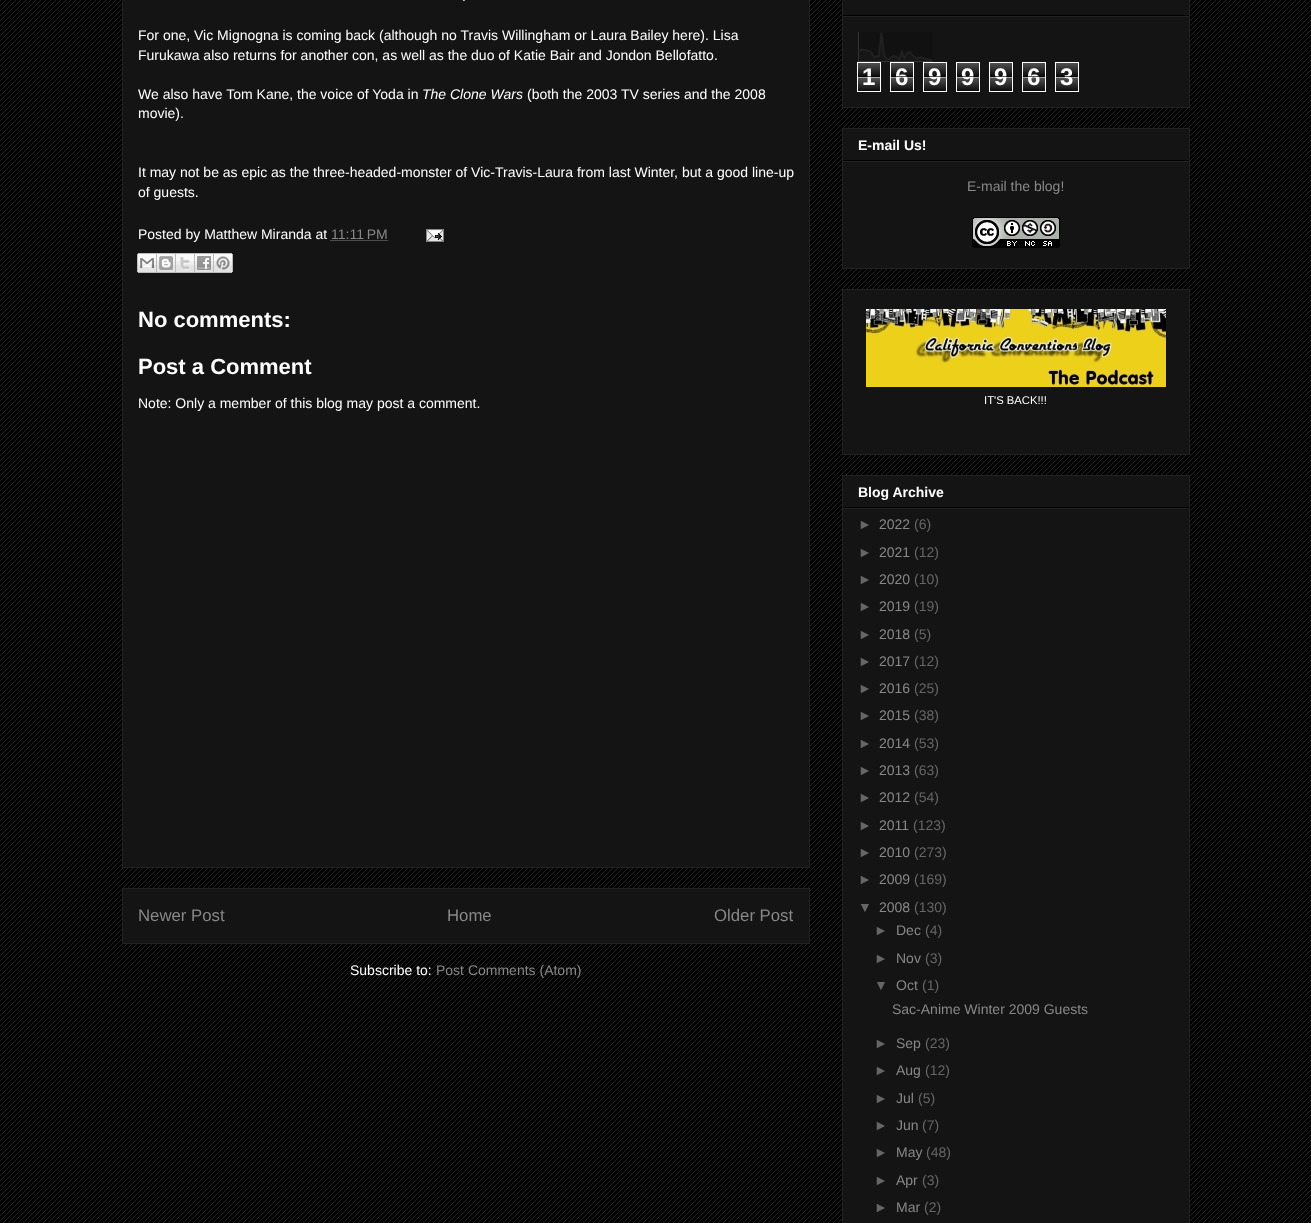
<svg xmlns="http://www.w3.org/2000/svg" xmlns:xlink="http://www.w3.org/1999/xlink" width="1311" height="1223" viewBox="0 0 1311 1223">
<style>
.cls-1{font:14px Liberation Sans;fill:#ffffff}
.cls-2{font:italic 14px Liberation Sans;fill:#ffffff}
.cls-3{font:14px Liberation Sans;fill:#888888}
.cls-4{font:bold 22px Liberation Sans;fill:#ffffff}
.cls-5{font:16.75px Liberation Sans;fill:#888888}
.cls-6{font:bold 24px Liberation Sans;fill:#ffffff}
.cls-7{font:bold 14px Liberation Sans;fill:#ffffff}
.cls-8{font:11.25px Liberation Sans;fill:#ffffff}
.cls-9{font:14px Liberation Sans;fill:#666666}
</style>
<rect width="100%" height="100%" fill="#000000"/>
<image xlink:href="image0.png" x="0" y="0" width="1311" height="1223"/>
<rect fill="#141414" stroke="#222222" x="122.5" y="-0.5" width="687" height="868"/>
<path fill="none" stroke="#888888" stroke-dasharray="1 1" d="M330.5 240.5H387.5"/>
<image xlink:href="image1.png" x="426" y="229" width="18" height="13"/>
<image xlink:href="image2.png" x="137" y="253" width="20" height="20"/>
<image xlink:href="image3.png" x="157" y="253" width="19" height="20"/>
<image xlink:href="image4.png" x="176" y="253" width="19" height="20"/>
<image xlink:href="image5.png" x="195" y="253" width="19" height="20"/>
<image xlink:href="image6.png" x="214" y="253" width="19" height="20"/>
<rect fill="#141414" stroke="#222222" x="122.5" y="888.5" width="687" height="55"/>
<rect fill="#141414" stroke="#222222" x="842.5" y="-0.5" width="347" height="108"/>
<rect fill="#000000" x="843" y="15" width="346" height="1"/>
<rect fill="#222222" x="843" y="16" width="346" height="1"/>
<image xlink:href="image7.png" x="858" y="32" width="75" height="30"/>
<image xlink:href="image8.png" x="858" y="63" width="22" height="28"/>
<rect fill="none" stroke="#ffffff" x="857.5" y="62.5" width="23" height="29"/>
<image xlink:href="image8.png" x="891" y="63" width="22" height="28"/>
<rect fill="none" stroke="#ffffff" x="890.5" y="62.5" width="23" height="29"/>
<image xlink:href="image8.png" x="924" y="63" width="22" height="28"/>
<rect fill="none" stroke="#ffffff" x="923.5" y="62.5" width="23" height="29"/>
<image xlink:href="image8.png" x="957" y="63" width="22" height="28"/>
<rect fill="none" stroke="#ffffff" x="956.5" y="62.5" width="23" height="29"/>
<image xlink:href="image8.png" x="990" y="63" width="22" height="28"/>
<rect fill="none" stroke="#ffffff" x="989.5" y="62.5" width="23" height="29"/>
<image xlink:href="image8.png" x="1023" y="63" width="22" height="28"/>
<rect fill="none" stroke="#ffffff" x="1022.5" y="62.5" width="23" height="29"/>
<image xlink:href="image8.png" x="1056" y="63" width="22" height="28"/>
<rect fill="none" stroke="#ffffff" x="1055.5" y="62.5" width="23" height="29"/>
<rect fill="#141414" stroke="#222222" x="842.5" y="128.5" width="347" height="140"/>
<rect fill="#000000" x="843" y="160" width="346" height="1"/>
<rect fill="#222222" x="843" y="161" width="346" height="1"/>
<image xlink:href="image9.png" x="972" y="217" width="88" height="31"/>
<rect fill="#141414" stroke="#222222" x="842.5" y="289.5" width="347" height="165"/>
<image xlink:href="image10.png" x="866" y="309" width="300" height="78"/>
<rect fill="#141414" stroke="#222222" x="842.5" y="475.5" width="347" height="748"/>
<rect fill="#000000" x="843" y="507" width="346" height="1"/>
<rect fill="#222222" x="843" y="508" width="346" height="1"/>
<text class="cls-1" x="462" y="1">.</text>
<text class="cls-1"><tspan x="138" y="40">For one, Vic Mignogna is coming back (although no Travis Willingham or Laura Bailey here). Lisa</tspan><tspan x="138" y="60">Furukawa also returns for another con, as well as the duo of Katie Bair and Jondon Bellofatto.</tspan></text>
<text class="cls-1" x="138" y="99">We also have Tom Kane, the voice of Yoda in</text>
<text class="cls-2" x="422" y="99">The Clone Wars</text>
<text class="cls-1" x="527" y="99">(both the 2003 TV series and the 2008</text>
<text class="cls-1" x="138" y="118">movie).</text>
<text class="cls-1"><tspan x="138" y="177">It may not be as epic as the three-headed-monster of Vic-Travis-Laura from last Winter, but a good line-up</tspan><tspan x="138" y="197">of guests.</tspan></text>
<text class="cls-1" x="138" y="239">Posted by Matthew Miranda at</text>
<text class="cls-3" x="331" y="239">11:11 PM</text>
<text class="cls-4" x="138" y="327">No comments:</text>
<text class="cls-4" x="138" y="374">Post a Comment</text>
<text class="cls-1" x="138" y="408">Note: Only a member of this blog may post a comment.</text>
<text class="cls-5" x="138" y="921">Newer Post</text>
<text class="cls-5" x="447" y="921">Home</text>
<text class="cls-5" x="714" y="921">Older Post</text>
<text class="cls-1" x="350" y="975">Subscribe to:</text>
<text class="cls-3" x="436" y="975">Post Comments (Atom)</text>
<text class="cls-6" x="862" y="85">1</text>
<rect fill="#000000" fill-opacity="0.65" x="858" y="76" width="22" height="1"/>
<rect fill="#ffffff" fill-opacity="0.65" x="858" y="77" width="22" height="1"/>
<text class="cls-6" x="895" y="85">6</text>
<rect fill="#000000" fill-opacity="0.65" x="891" y="76" width="22" height="1"/>
<rect fill="#ffffff" fill-opacity="0.65" x="891" y="77" width="22" height="1"/>
<text class="cls-6" x="928" y="85">9</text>
<rect fill="#000000" fill-opacity="0.65" x="924" y="76" width="22" height="1"/>
<rect fill="#ffffff" fill-opacity="0.65" x="924" y="77" width="22" height="1"/>
<text class="cls-6" x="961" y="85">9</text>
<rect fill="#000000" fill-opacity="0.65" x="957" y="76" width="22" height="1"/>
<rect fill="#ffffff" fill-opacity="0.65" x="957" y="77" width="22" height="1"/>
<text class="cls-6" x="994" y="85">9</text>
<rect fill="#000000" fill-opacity="0.65" x="990" y="76" width="22" height="1"/>
<rect fill="#ffffff" fill-opacity="0.65" x="990" y="77" width="22" height="1"/>
<text class="cls-6" x="1027" y="85">6</text>
<rect fill="#000000" fill-opacity="0.65" x="1023" y="76" width="22" height="1"/>
<rect fill="#ffffff" fill-opacity="0.65" x="1023" y="77" width="22" height="1"/>
<text class="cls-6" x="1060" y="85">3</text>
<rect fill="#000000" fill-opacity="0.65" x="1056" y="76" width="22" height="1"/>
<rect fill="#ffffff" fill-opacity="0.65" x="1056" y="77" width="22" height="1"/>
<text class="cls-7" x="858" y="150">E-mail Us!</text>
<text class="cls-3" x="967" y="191">E-mail the blog!</text>
<text class="cls-8" x="984" y="404">IT'S BACK!!!</text>
<text class="cls-7" x="858" y="497">Blog Archive</text>
<text class="cls-9" x="858" y="529">►</text>
<text class="cls-3" x="879" y="529">2022</text>
<text class="cls-9" x="914" y="529">(6)</text>
<text class="cls-9" x="858" y="557">►</text>
<text class="cls-3" x="879" y="557">2021</text>
<text class="cls-9" x="914" y="557">(12)</text>
<text class="cls-9" x="858" y="584">►</text>
<text class="cls-3" x="879" y="584">2020</text>
<text class="cls-9" x="914" y="584">(10)</text>
<text class="cls-9" x="858" y="611">►</text>
<text class="cls-3" x="879" y="611">2019</text>
<text class="cls-9" x="914" y="611">(19)</text>
<text class="cls-9" x="858" y="639">►</text>
<text class="cls-3" x="879" y="639">2018</text>
<text class="cls-9" x="914" y="639">(5)</text>
<text class="cls-9" x="858" y="666">►</text>
<text class="cls-3" x="879" y="666">2017</text>
<text class="cls-9" x="914" y="666">(12)</text>
<text class="cls-9" x="858" y="693">►</text>
<text class="cls-3" x="879" y="693">2016</text>
<text class="cls-9" x="914" y="693">(25)</text>
<text class="cls-9" x="858" y="720">►</text>
<text class="cls-3" x="879" y="720">2015</text>
<text class="cls-9" x="914" y="720">(38)</text>
<text class="cls-9" x="858" y="748">►</text>
<text class="cls-3" x="879" y="748">2014</text>
<text class="cls-9" x="914" y="748">(53)</text>
<text class="cls-9" x="858" y="775">►</text>
<text class="cls-3" x="879" y="775">2013</text>
<text class="cls-9" x="914" y="775">(63)</text>
<text class="cls-9" x="858" y="802">►</text>
<text class="cls-3" x="879" y="802">2012</text>
<text class="cls-9" x="914" y="802">(54)</text>
<text class="cls-9" x="858" y="830">►</text>
<text class="cls-3" x="879" y="830">2011</text>
<text class="cls-9" x="913" y="830">(123)</text>
<text class="cls-9" x="858" y="857">►</text>
<text class="cls-3" x="879" y="857">2010</text>
<text class="cls-9" x="914" y="857">(273)</text>
<text class="cls-9" x="858" y="884">►</text>
<text class="cls-3" x="879" y="884">2009</text>
<text class="cls-9" x="914" y="884">(169)</text>
<text class="cls-9" x="858" y="912">▼</text>
<text class="cls-3" x="879" y="912">2008</text>
<text class="cls-9" x="914" y="912">(130)</text>
<text class="cls-9" x="874" y="935">►</text>
<text class="cls-3" x="896" y="935">Dec</text>
<text class="cls-9" x="925" y="935">(4)</text>
<text class="cls-9" x="874" y="963">►</text>
<text class="cls-3" x="896" y="963">Nov</text>
<text class="cls-9" x="925" y="963">(3)</text>
<text class="cls-9" x="874" y="990">▼</text>
<text class="cls-3" x="896" y="990">Oct</text>
<text class="cls-9" x="922" y="990">(1)</text>
<text class="cls-3" x="892" y="1014">Sac-Anime Winter 2009 Guests</text>
<text class="cls-9" x="874" y="1048">►</text>
<text class="cls-3" x="896" y="1048">Sep</text>
<text class="cls-9" x="925" y="1048">(23)</text>
<text class="cls-9" x="874" y="1075">►</text>
<text class="cls-3" x="896" y="1075">Aug</text>
<text class="cls-9" x="925" y="1075">(12)</text>
<text class="cls-9" x="874" y="1103">►</text>
<text class="cls-3" x="896" y="1103">Jul</text>
<text class="cls-9" x="918" y="1103">(5)</text>
<text class="cls-9" x="874" y="1130">►</text>
<text class="cls-3" x="896" y="1130">Jun</text>
<text class="cls-9" x="922" y="1130">(7)</text>
<text class="cls-9" x="874" y="1157">►</text>
<text class="cls-3" x="896" y="1157">May</text>
<text class="cls-9" x="926" y="1157">(48)</text>
<text class="cls-9" x="874" y="1185">►</text>
<text class="cls-3" x="896" y="1185">Apr</text>
<text class="cls-9" x="922" y="1185">(3)</text>
<text class="cls-9" x="874" y="1212">►</text>
<text class="cls-3" x="896" y="1212">Mar</text>
<text class="cls-9" x="924" y="1212">(2)</text>
</svg>
